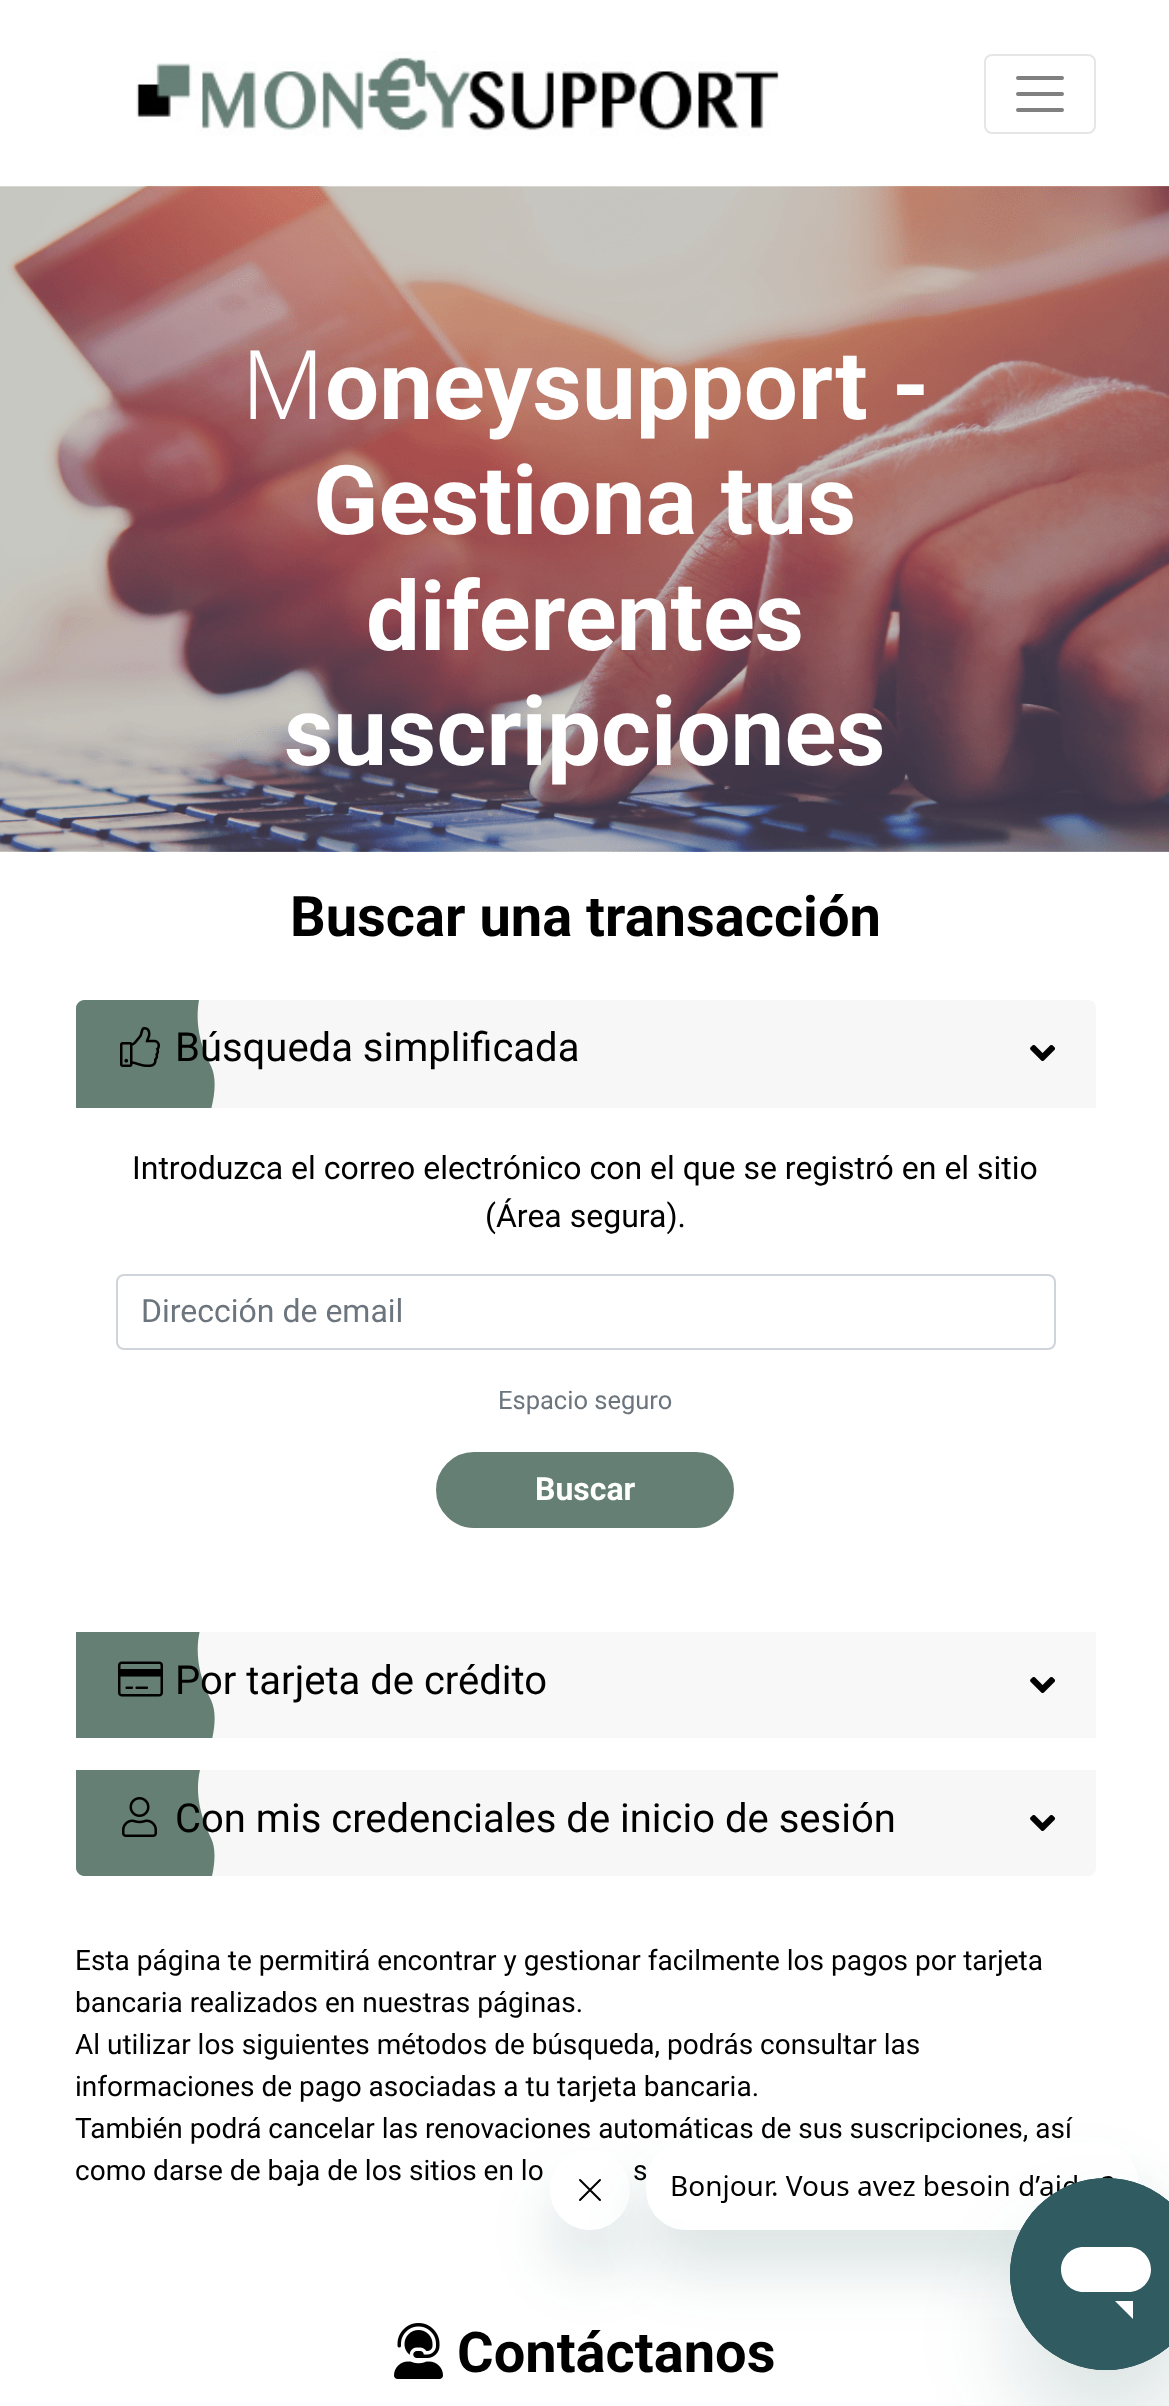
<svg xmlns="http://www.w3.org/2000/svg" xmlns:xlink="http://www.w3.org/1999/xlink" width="1169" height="2406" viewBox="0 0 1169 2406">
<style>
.cls-1{font:300 96px Noto Sans;fill:#ffffff}
.cls-2{font:bold 96px Roboto;fill:#ffffff}
.cls-3{font:bold 56px Roboto;fill:#000000}
.cls-4{font:40px Roboto;fill:#000000}
.cls-5{font:32px Roboto;fill:#000000}
.cls-6{font:32px Roboto;fill:#6c757d}
.cls-7{font:25.5px Roboto;fill:#6c757d}
.cls-8{font:bold 32px Roboto;fill:#ffffff}
.cls-9{font:28px Roboto;fill:#000000}
</style>
<defs>
<clipPath id="clip1"><rect x="76" y="1000" width="1020" height="108"/></clipPath>
<clipPath id="clip2"><rect x="76" y="1632" width="1020" height="106"/></clipPath>
<clipPath id="clip3"><path d="M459 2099H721V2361H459ZM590 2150C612 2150 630 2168 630 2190C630 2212 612 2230 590 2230C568 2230 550 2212 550 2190C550 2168 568 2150 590 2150Z" clip-rule="evenodd"/></clipPath>
<clipPath id="clip4"><path d="M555 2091H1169V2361H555ZM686 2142H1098C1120 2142 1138 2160 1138 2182V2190C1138 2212 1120 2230 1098 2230H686C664 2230 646 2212 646 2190V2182C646 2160 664 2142 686 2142Z" clip-rule="evenodd"/></clipPath>
</defs>
<rect width="100%" height="100%" fill="#ffffff"/>
<image xlink:href="image0.png" x="136" y="51" width="643" height="86"/>
<rect fill="none" stroke="#e6e6e6" stroke-width="2" x="985" y="55" width="110" height="78" rx="7"/>
<path fill="none" stroke="#808080" stroke-width="4" stroke-linecap="round" d="M1018 78H1062M1018 94H1062M1018 110H1062"/>
<image xlink:href="image1.png" x="0" y="186" width="1169" height="666"/>
<path fill="#f7f7f7" d="M84 1000H1088C1092.5 1000 1096 1003.5 1096 1008V1108H76V1008C76 1003.5 79.5 1000 84 1000Z"/>
<g clip-path="url(#clip1)">
<path fill="#667f75" d="M84 1000C80 1000 76 1004 76 1008V1145H198C198 1145 224 1093 211 1066C197 1040 196 1017 199 1000Z"/>
</g>
<image xlink:href="image2.png" x="120" y="1027" width="40" height="40"/>
<image xlink:href="image3.png" x="1030" y="1045" width="26" height="16"/>
<rect fill="none" stroke="#ced4da" stroke-width="2" x="117" y="1275" width="938" height="74" rx="7"/>
<rect fill="#667f75" stroke="#667f75" stroke-width="2" x="437" y="1453" width="296" height="74" rx="37"/>
<rect fill="#f8f8f8" x="197" y="1632" width="899" height="106"/>
<g clip-path="url(#clip2)">
<path fill="#667f75" d="M-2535 1594V1779H198C198 1779 224 1727 211 1700C177 1634 219 1594 219 1594Z"/>
</g>
<image xlink:href="image4.png" x="118" y="1661" width="45" height="36"/>
<image xlink:href="image5.png" x="1030" y="1677" width="26" height="16"/>
<path fill="#f7f7f7" d="M76 1770H1096V1868C1096 1872.5 1092.5 1876 1088 1876H84C79.5 1876 76 1872.5 76 1868Z"/>
<path fill="#667f75" d="M76 1770V1868C76 1872 80 1876 84 1876H212C215 1863 216 1848 211 1838C197 1810 196 1787 200 1770Z"/>
<image xlink:href="image6.png" x="122" y="1797" width="35" height="40"/>
<image xlink:href="image3.png" x="1030" y="1815" width="26" height="16"/>
<g clip-path="url(#clip3)">
<rect fill="#17494d" fill-opacity="0.15" filter="blur(30px)" x="550" y="2190" width="80" height="80" rx="40"/>
</g>
<image xlink:href="image8.png" x="551" y="2164" width="78" height="37"/>
<g clip-path="url(#clip4)">
<rect fill="#17494d" fill-opacity="0.15" filter="blur(30px)" x="646" y="2182" width="492" height="88" rx="40"/>
</g>
<image xlink:href="image10.png" x="394" y="2323" width="49" height="56"/>
<text class="cls-1" x="241" y="419">M</text>
<text class="cls-2" x="325" y="419">oneysupport -</text>
<text class="cls-2" x="313" y="534">Gestiona tus</text>
<text class="cls-2" x="366" y="650">diferentes</text>
<text class="cls-2" x="284" y="765">suscripciones</text>
<text class="cls-3" x="290" y="936">Buscar una transacción</text>
<text class="cls-4" x="175" y="1061">Búsqueda simplificada</text>
<text class="cls-5" x="132" y="1179">Introduzca el correo electrónico con el que se registró en el sitio</text>
<text class="cls-5" x="485" y="1227">(Área segura).</text>
<text class="cls-6" x="141" y="1322">Dirección de email</text>
<text class="cls-7" x="498" y="1409">Espacio seguro</text>
<text class="cls-8" x="535" y="1500">Buscar</text>
<text class="cls-4" x="175" y="1694">Por tarjeta de crédito</text>
<text class="cls-4" x="175" y="1832">Con mis credenciales de inicio de sesión</text>
<text class="cls-9"><tspan x="75" y="1970">Esta página te permitirá encontrar y gestionar facilmente los pagos por tarjeta</tspan><tspan x="75" y="2012">bancaria realizados en nuestras páginas.</tspan><tspan x="75" y="2054">Al utilizar los siguientes métodos de búsqueda, podrás consultar las</tspan><tspan x="75" y="2096">informaciones de pago asociadas a tu tarjeta bancaria.</tspan><tspan x="75" y="2138">También podrá cancelar las renovaciones automáticas de sus suscripciones, así</tspan><tspan x="75" y="2180">como darse de baja de los sitios en lo</tspan></text>
<text class="cls-9" x="633" y="2180">s</text>
<image xlink:href="image7.png" x="647" y="2142" width="467" height="77"/>
<rect fill="#17494d" fill-opacity="0.15" filter="blur(45px)" x="1010" y="2238" width="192" height="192" rx="96"/>
<image xlink:href="image9.png" x="1010" y="2178" width="159" height="192"/>
<text class="cls-3" x="457" y="2372">Contáctanos</text>
</svg>
